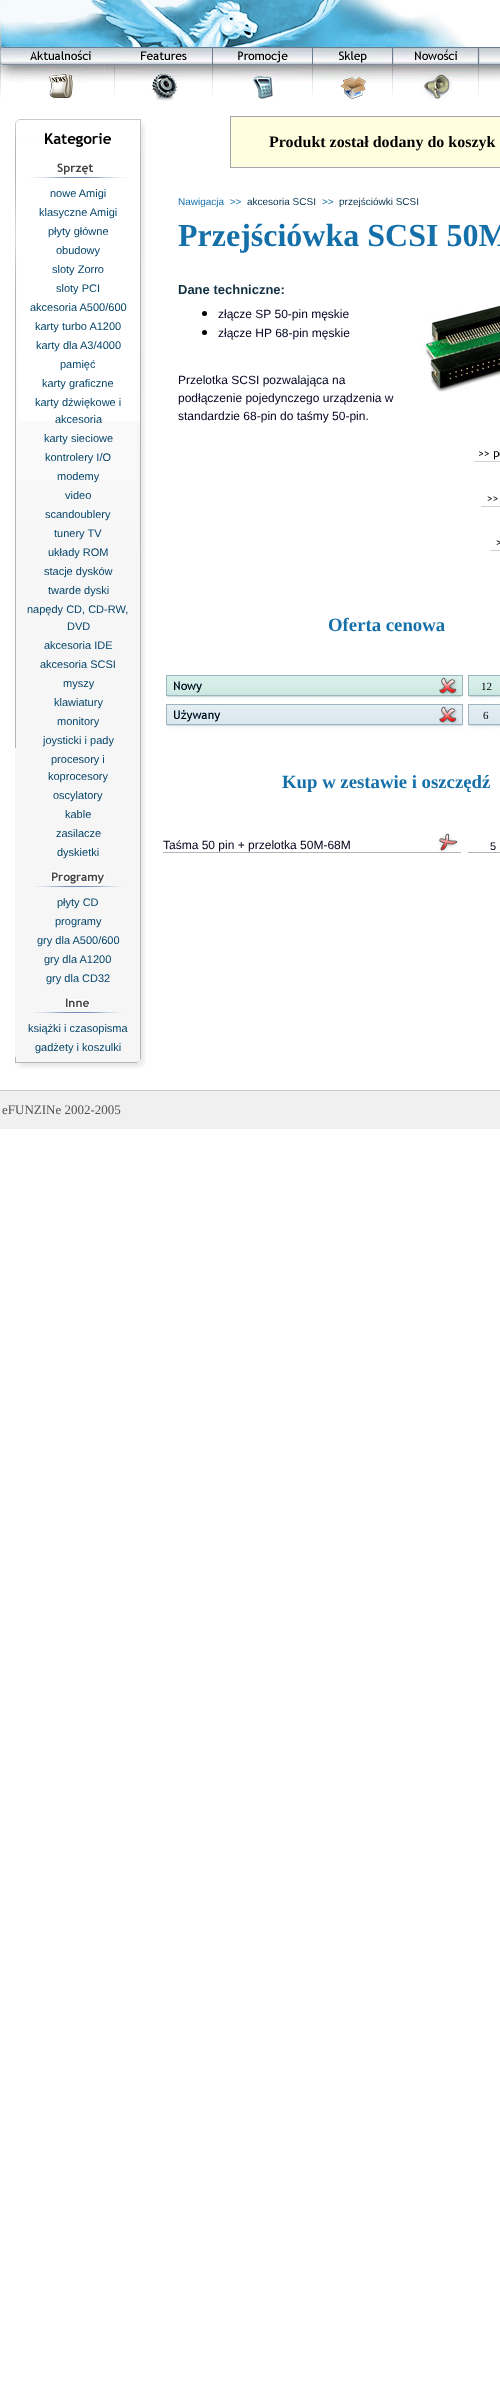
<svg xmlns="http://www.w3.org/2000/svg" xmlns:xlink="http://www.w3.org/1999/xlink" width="500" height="2383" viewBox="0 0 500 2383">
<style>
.cls-1{font:11px Liberation Sans;fill:#04446a}
.cls-2{font:bold 16px Liberation Serif;fill:#000000}
.cls-3{font:10px Liberation Sans;fill:#1570a9}
.cls-4{font:10px Liberation Sans;fill:#05314c}
.cls-5{font:bold 32px Liberation Serif;fill:#1570a9}
.cls-6{font:bold 13px Liberation Sans;fill:#123042}
.cls-7{font:12px Liberation Sans;fill:#000020}
.cls-8{font:bold 18.75px Liberation Serif;fill:#1570a9}
.cls-9{font:11px Liberation Serif;fill:#000000}
.cls-10{font:12px Liberation Sans;fill:#000019}
.cls-11{font:11px Liberation Sans;fill:#000019}
.cls-12{font:13px Liberation Serif;fill:#505050}
</style>
<rect width="100%" height="100%" fill="#ffffff"/>
<image xlink:href="image0.png" x="392" y="64" width="108" height="1"/>
<image xlink:href="image1.png" x="0" y="0" width="500" height="47"/>
<image xlink:href="image2.png" x="0" y="47" width="115" height="17"/>
<image xlink:href="image3.png" x="115" y="47" width="97" height="17"/>
<image xlink:href="image4.png" x="212" y="47" width="100" height="17"/>
<image xlink:href="image5.png" x="312" y="47" width="80" height="17"/>
<image xlink:href="image6.png" x="392" y="47" width="86" height="17"/>
<image xlink:href="image7.png" x="478" y="47" width="22" height="17"/>
<image xlink:href="image8.png" x="0" y="64" width="115" height="35"/>
<image xlink:href="image9.png" x="115" y="64" width="97" height="37"/>
<image xlink:href="image10.png" x="212" y="64" width="100" height="35"/>
<image xlink:href="image11.png" x="312" y="64" width="80" height="36"/>
<image xlink:href="image12.png" x="392" y="65" width="86" height="36"/>
<image xlink:href="image13.png" x="478" y="65" width="22" height="31"/>
<image xlink:href="image14.png" x="15" y="119" width="4" height="34"/>
<image xlink:href="image15.png" x="19" y="119" width="118" height="28"/>
<image xlink:href="image16.png" x="137" y="119" width="9" height="34"/>
<rect fill="#f6f6f6" x="15" y="748" width="4" height="309"/>
<image xlink:href="image17.png" x="15" y="153" width="4" height="595"/>
<image xlink:href="image18.png" x="19" y="421" width="118" height="636"/>
<image xlink:href="image19.png" x="29" y="163" width="98" height="15"/>
<image xlink:href="image20.png" x="29" y="871" width="98" height="16"/>
<image xlink:href="image21.png" x="33" y="997" width="90" height="16"/>
<image xlink:href="image22.png" x="137" y="153" width="9" height="904"/>
<image xlink:href="image23.png" x="137" y="153" width="3" height="269"/>
<image xlink:href="image24.png" x="15" y="1057" width="4" height="11"/>
<image xlink:href="image25.png" x="19" y="1057" width="118" height="12"/>
<image xlink:href="image26.png" x="137" y="1057" width="9" height="12"/>
<rect fill="#a1a5a9" x="230" y="116" width="270" height="52"/>
<rect fill="#ffffe0" x="231" y="117" width="269" height="50"/>
<circle fill="#000000" cx="204.5" cy="313.5" r="2.5"/>
<circle fill="#000000" cx="204.5" cy="332.5" r="2.5"/>
<image xlink:href="image27.png" x="420" y="305" width="80" height="87"/>
<image xlink:href="image28.png" x="474" y="451" width="26" height="11"/>
<image xlink:href="image29.png" x="481" y="496" width="19" height="11"/>
<image xlink:href="image30.png" x="490" y="540" width="10" height="11"/>
<rect fill="#99b7ba" x="166" y="675" width="297" height="21"/>
<image xlink:href="image31.png" x="167" y="676" width="295" height="19"/>
<image xlink:href="image32.png" x="174" y="681" width="28" height="12"/>
<image xlink:href="image33.png" x="439" y="677" width="20" height="18"/>
<rect fill="#99b7ba" x="468" y="675" width="32" height="21"/>
<image xlink:href="image34.png" x="469" y="676" width="31" height="19"/>
<image xlink:href="image35.png" x="167" y="696" width="295" height="5"/>
<image xlink:href="image36.png" x="468" y="696" width="32" height="5"/>
<rect fill="#a0b3c0" x="166" y="704" width="297" height="21"/>
<image xlink:href="image37.png" x="167" y="705" width="295" height="19"/>
<image xlink:href="image38.png" x="174" y="710" width="47" height="12"/>
<image xlink:href="image39.png" x="439" y="706" width="20" height="18"/>
<rect fill="#a0b3c0" x="468" y="704" width="32" height="21"/>
<image xlink:href="image40.png" x="469" y="705" width="31" height="19"/>
<image xlink:href="image35.png" x="167" y="725" width="295" height="5"/>
<image xlink:href="image36.png" x="468" y="725" width="32" height="5"/>
<image xlink:href="image41.png" x="438" y="833" width="20" height="18"/>
<rect fill="#b3b4b4" x="163" y="852" width="298" height="1"/>
<rect fill="#b2b4b4" x="468" y="852" width="32" height="1"/>
<rect fill="#cac9cc" x="0" y="1090" width="500" height="1"/>
<rect fill="#f0f0f0" x="0" y="1091" width="500" height="38"/>
<text class="cls-1" x="50" y="197">nowe Amigi</text>
<text class="cls-1" x="39" y="216">klasyczne Amigi</text>
<text class="cls-1" x="48" y="235">płyty główne</text>
<text class="cls-1" x="56" y="254">obudowy</text>
<text class="cls-1" x="52" y="273">sloty Zorro</text>
<text class="cls-1" x="56" y="292">sloty PCI</text>
<text class="cls-1" x="30" y="311">akcesoria A500/600</text>
<text class="cls-1" x="35" y="330">karty turbo A1200</text>
<text class="cls-1" x="36" y="349">karty dla A3/4000</text>
<text class="cls-1" x="60" y="368">pamięć</text>
<text class="cls-1" x="42" y="387">karty graficzne</text>
<text class="cls-1" x="35" y="406">karty dźwiękowe i</text>
<text class="cls-1" x="55" y="423">akcesoria</text>
<text class="cls-1" x="44" y="442">karty sieciowe</text>
<text class="cls-1" x="45" y="461">kontrolery I/O</text>
<text class="cls-1" x="57" y="480">modemy</text>
<text class="cls-1" x="65" y="499">video</text>
<text class="cls-1" x="45" y="518">scandoublery</text>
<text class="cls-1" x="54" y="537">tunery TV</text>
<text class="cls-1" x="48" y="556">układy ROM</text>
<text class="cls-1" x="44" y="575">stacje dysków</text>
<text class="cls-1" x="48" y="594">twarde dyski</text>
<text class="cls-1" x="27" y="613">napędy CD, CD-RW,</text>
<text class="cls-1" x="67" y="630">DVD</text>
<text class="cls-1" x="44" y="649">akcesoria IDE</text>
<text class="cls-1" x="40" y="668">akcesoria SCSI</text>
<text class="cls-1" x="63" y="687">myszy</text>
<text class="cls-1" x="54" y="706">klawiatury</text>
<text class="cls-1" x="57" y="725">monitory</text>
<text class="cls-1" x="43" y="744">joysticki i pady</text>
<text class="cls-1" x="51" y="763">procesory i</text>
<text class="cls-1" x="48" y="780">koprocesory</text>
<text class="cls-1" x="53" y="799">oscylatory</text>
<text class="cls-1" x="65" y="818">kable</text>
<text class="cls-1" x="56" y="837">zasilacze</text>
<text class="cls-1" x="57" y="856">dyskietki</text>
<text class="cls-1" x="57" y="906">płyty CD</text>
<text class="cls-1" x="55" y="925">programy</text>
<text class="cls-1" x="37" y="944">gry dla A500/600</text>
<text class="cls-1" x="44" y="963">gry dla A1200</text>
<text class="cls-1" x="46" y="982">gry dla CD32</text>
<text class="cls-1" x="28" y="1032">książki i czasopisma</text>
<text class="cls-1" x="35" y="1051">gadżety i koszulki</text>
<text class="cls-2" x="269" y="147">Produkt został dodany do koszyk</text>
<text class="cls-3" xml:space="preserve" x="178" y="205">Nawigacja  &gt;&gt;</text>
<text class="cls-4" x="247" y="205">akcesoria SCSI</text>
<text class="cls-3" x="322" y="205">&gt;&gt;</text>
<text class="cls-4" x="339" y="205">przejściówki SCSI</text>
<text class="cls-5" x="178" y="246">Przejściówka SCSI 50M</text>
<text class="cls-6" x="178" y="294">Dane techniczne:</text>
<text class="cls-7"><tspan x="218" y="318">złącze SP 50-pin męskie</tspan><tspan x="218" y="337">złącze HP 68-pin męskie</tspan></text>
<text class="cls-7"><tspan x="178" y="384">Przelotka SCSI pozwalająca na</tspan><tspan x="178" y="402">podłączenie pojedynczego urządzenia w</tspan><tspan x="178" y="420">standardzie 68-pin do taśmy 50-pin.</tspan></text>
<text class="cls-8" x="328" y="631">Oferta cenowa</text>
<text class="cls-9" x="481" y="690">12</text>
<text class="cls-9" x="483" y="719">6</text>
<text class="cls-8" x="282" y="788">Kup w zestawie i oszczędź</text>
<text class="cls-10" x="163" y="849">Taśma 50 pin + przelotka 50M-68M</text>
<text class="cls-11" x="490" y="850">5</text>
<text class="cls-12" x="2" y="1114">eFUNZINe 2002-2005</text>
</svg>
